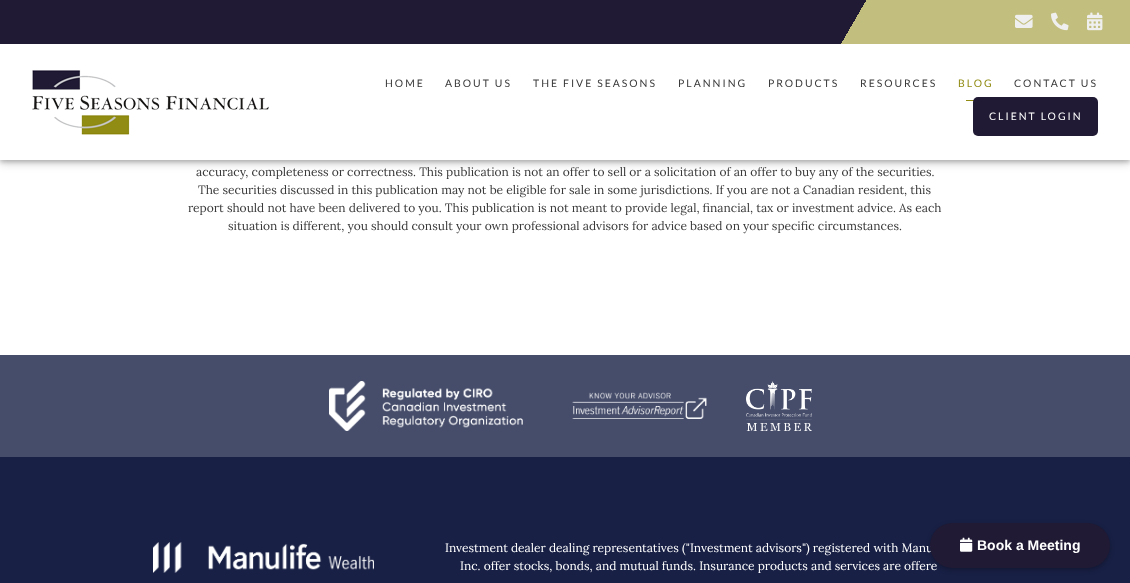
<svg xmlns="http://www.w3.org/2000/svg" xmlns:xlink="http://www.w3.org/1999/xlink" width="1130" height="583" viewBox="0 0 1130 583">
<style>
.cls-1{font:10.4px Lato;letter-spacing:2px;fill:#393939}
.cls-2{font:10.4px Lato;letter-spacing:2px;fill:#918c14}
.cls-3{font:10.4px Lato;letter-spacing:2px;fill:#ffffff}
.cls-4{font:12px Lora;fill:#393939}
.cls-5{font:12px Lora;fill:#ffffff}
.cls-6{font:bold 14px Liberation Sans;fill:#ffffff}
</style>
<defs>
<linearGradient id="g1" gradientUnits="userSpaceOnUse" x1="132" y1="-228" x2="998" y2="272"><stop offset="0.75" stop-color="#201a34"/><stop offset="0.75" stop-color="#c2be7e"/></linearGradient>
</defs>
<rect width="100%" height="100%" fill="#ffffff"/>
<rect fill="#000000" fill-opacity="0.19" filter="blur(5px)" x="0" y="3" width="1130" height="160"/>
<rect fill="#000000" fill-opacity="0.2" filter="blur(2px)" x="0" y="2" width="1130" height="160"/>
<rect fill="#ffffff" x="0" y="44" width="1130" height="116"/>
<rect fill="url(#g1)" x="0" y="0" width="1130" height="44"/>
<image xlink:href="image0.png" x="1015" y="14" width="18" height="14"/>
<image xlink:href="image1.png" x="1051" y="12" width="18" height="19"/>
<image xlink:href="image2.png" x="1087" y="12" width="16" height="19"/>
<image xlink:href="image3.png" x="32" y="70" width="237" height="65"/>
<rect fill="#918c14" x="966" y="100" width="8" height="1"/>
<rect fill="#201a34" x="973" y="97" width="125" height="39" rx="5"/>
<rect fill="#182045" x="0" y="457" width="1130" height="126"/>
<rect fill="#464d6a" x="0" y="355" width="1130" height="102"/>
<image xlink:href="image4.png" x="329" y="381" width="194" height="50"/>
<image xlink:href="image5.png" x="572" y="392" width="135" height="27"/>
<image xlink:href="image6.png" x="746" y="381" width="66" height="50"/>
<image xlink:href="image7.png" x="153" y="542" width="221" height="31"/>
<rect fill="#000000" fill-opacity="0.25" filter="blur(2.5px)" x="930" y="525" width="180" height="45" rx="22.5"/>
<text class="cls-1" x="385" y="87">HOME</text>
<text class="cls-1" x="445" y="87">ABOUT US</text>
<text class="cls-1" x="533" y="87">THE FIVE SEASONS</text>
<text class="cls-1" x="678" y="87">PLANNING</text>
<text class="cls-1" x="768" y="87">PRODUCTS</text>
<text class="cls-1" x="860" y="87">RESOURCES</text>
<text class="cls-2" x="958" y="87">BLOG</text>
<text class="cls-1" x="1014" y="87">CONTACT US</text>
<text class="cls-3" x="989" y="120">CLIENT LOGIN</text>
<text class="cls-4" x="196" y="176">accuracy, completeness or correctness. This publication is not an offer to sell or a solicitation of an offer to buy any of the securities.</text>
<text class="cls-4" x="198" y="194">The securities discussed in this publication may not be eligible for sale in some jurisdictions. If you are not a Canadian resident, this</text>
<text class="cls-4" x="188" y="212">report should not have been delivered to you. This publication is not meant to provide legal, financial, tax or investment advice. As each</text>
<text class="cls-4" x="228" y="230">situation is different, you should consult your own professional advisors for advice based on your specific circumstances.</text>
<text class="cls-5" x="445" y="552">Investment dealer dealing representatives ("Investment advisors") registered with Manu</text>
<text class="cls-5" x="460" y="570">Inc. offer stocks, bonds, and mutual funds. Insurance products and services are offere</text>
<rect fill="#201a34" x="930" y="523" width="180" height="45" rx="22.5"/>
<image xlink:href="image8.png" x="960" y="537" width="13" height="15"/>
<text class="cls-6" x="977" y="550">Book a Meeting</text>
</svg>
